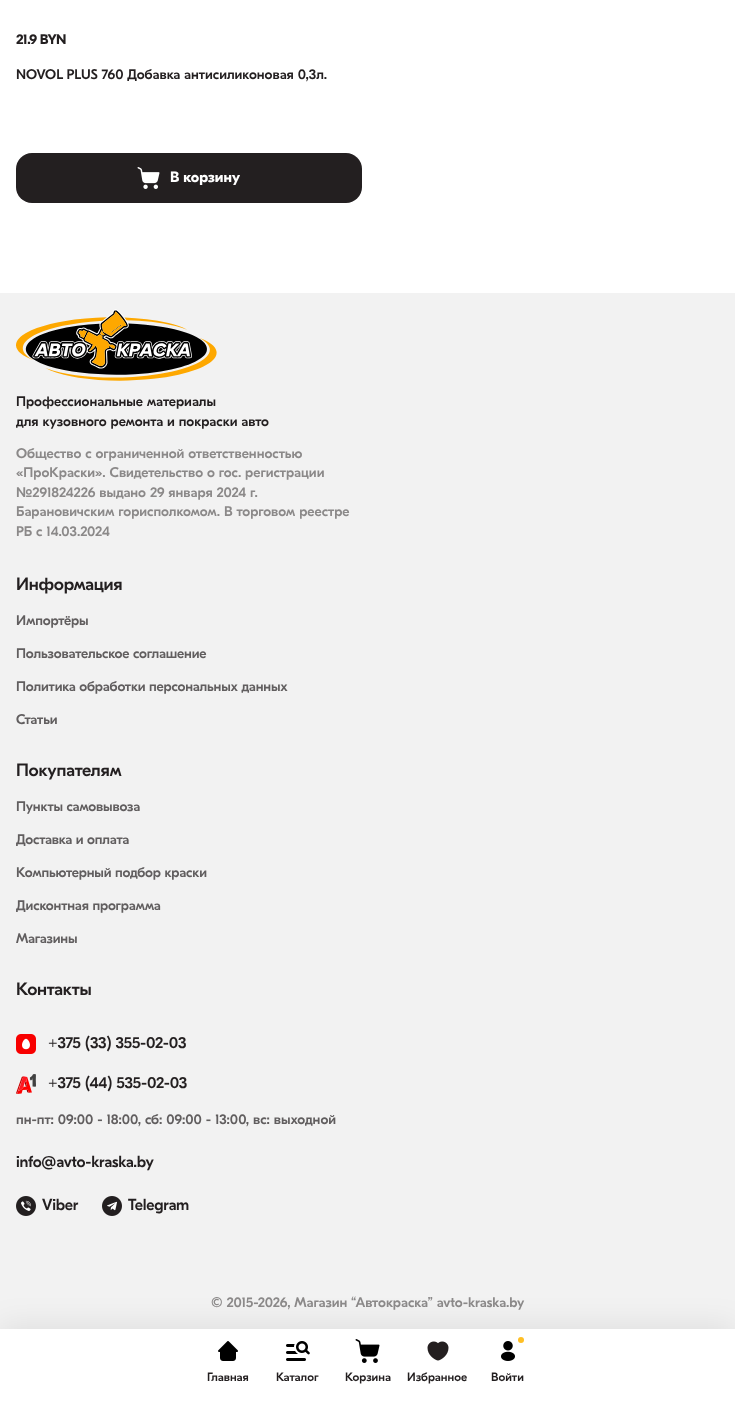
<svg xmlns="http://www.w3.org/2000/svg" xmlns:xlink="http://www.w3.org/1999/xlink" width="735" height="1404" viewBox="0 0 735 1404">
<style>
.cls-1{font:bold 14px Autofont;letter-spacing:-0.5px;fill:#231f20}
.cls-2{font:500 14px Autofont;fill:#231f20}
.cls-3{font:bold 15px Autofont;fill:#ffffff}
.cls-4{font:500 14px Autofont;fill:#8b8989}
.cls-5{font:500 18px Autofont;letter-spacing:-0.25px;fill:#231f20}
.cls-6{font:500 14px Autofont;letter-spacing:-0.15px;fill:#615e5f}
.cls-7{font:500 16px Autofont;letter-spacing:-0.15px;fill:#231f20}
.cls-8{font:500 14px Autofont;fill:#615e5f}
.cls-9{font:500 16px Autofont;letter-spacing:-0.2px;fill:#231f20}
.cls-10{font:500 12px Autofont;fill:#231f20}
</style>
<rect width="100%" height="100%" fill="#ffffff"/>
<rect fill="#231f20" x="16" y="153" width="346" height="50" rx="16"/>
<image xlink:href="image0.png" x="137" y="167" width="23" height="22"/>
<rect fill="#f2f2f2" x="0" y="293" width="735" height="1036"/>
<image xlink:href="image1.png" x="16" y="309" width="201" height="72"/>
<image xlink:href="image2.png" x="16" y="1034" width="20" height="20"/>
<image xlink:href="image3.png" x="16" y="1074" width="20" height="20"/>
<image xlink:href="image4.png" x="16" y="1196" width="20" height="20"/>
<image xlink:href="image5.png" x="102" y="1196" width="20" height="20"/>
<rect fill="#000000" fill-opacity="0.08" filter="blur(15px)" x="0" y="1325" width="735" height="75"/>
<rect fill="#ffffff" x="0" y="1329" width="735" height="75"/>
<image xlink:href="image6.png" x="218" y="1341" width="20" height="20"/>
<image xlink:href="image7.png" x="286" y="1341" width="24" height="20"/>
<image xlink:href="image8.png" x="355" y="1339" width="25" height="24"/>
<image xlink:href="image9.png" x="427" y="1341" width="22" height="20"/>
<circle fill="#ffbf24" cx="521" cy="1340" r="3"/>
<image xlink:href="image10.png" x="501" y="1341" width="14" height="20"/>
<text class="cls-1" x="16" y="44">21.9 BYN</text>
<text class="cls-2" x="16" y="79">NOVOL PLUS 760 Добавка антисиликоновая 0,3л.</text>
<text class="cls-3" x="170" y="182">В корзину</text>
<text class="cls-2"><tspan x="16" y="406">Профессиональные материалы</tspan><tspan x="16" y="426">для кузовного ремонта и покраски авто</tspan></text>
<text class="cls-4"><tspan x="16" y="458">Общество с ограниченной ответственностью</tspan><tspan x="16" y="477">«ПроКраски». Свидетельство о гос. регистрации</tspan><tspan x="16" y="497">№291824226 выдано 29 января 2024 г.</tspan><tspan x="16" y="516">Барановичским горисполкомом. В торговом реестре</tspan><tspan x="16" y="536">РБ с 14.03.2024</tspan></text>
<text class="cls-5" x="16" y="590">Информация</text>
<text class="cls-6" x="16" y="625">Импортёры</text>
<text class="cls-6" x="16" y="658">Пользовательское соглашение</text>
<text class="cls-6" x="16" y="691">Политика обработки персональных данных</text>
<text class="cls-6" x="16" y="724">Статьи</text>
<text class="cls-5" x="16" y="776">Покупателям</text>
<text class="cls-6" x="16" y="811">Пункты самовывоза</text>
<text class="cls-6" x="16" y="844">Доставка и оплата</text>
<text class="cls-6" x="16" y="877">Компьютерный подбор краски</text>
<text class="cls-6" x="16" y="910">Дисконтная программа</text>
<text class="cls-6" x="16" y="943">Магазины</text>
<text class="cls-5" x="16" y="995">Контакты</text>
<text class="cls-7" x="48" y="1048">+375 (33) 355-02-03</text>
<text class="cls-7" x="48" y="1088">+375 (44) 535-02-03</text>
<text class="cls-8" x="16" y="1124">пн-пт: 09:00 - 18:00, сб: 09:00 - 13:00, вс: выходной</text>
<text class="cls-9" x="16" y="1167">info@avto-kraska.by</text>
<text class="cls-9" x="42" y="1210">Viber</text>
<text class="cls-9" x="128" y="1210">Telegram</text>
<text class="cls-4" x="211" y="1307">© 2015-2026, Магазин “Автокраска” avto-kraska.by</text>
<text class="cls-10" x="207" y="1381">Главная</text>
<text class="cls-10" x="276" y="1381">Каталог</text>
<text class="cls-10" x="345" y="1381">Корзина</text>
<text class="cls-10" x="407" y="1381">Избранное</text>
<text class="cls-10" x="491" y="1381">Войти</text>
</svg>
